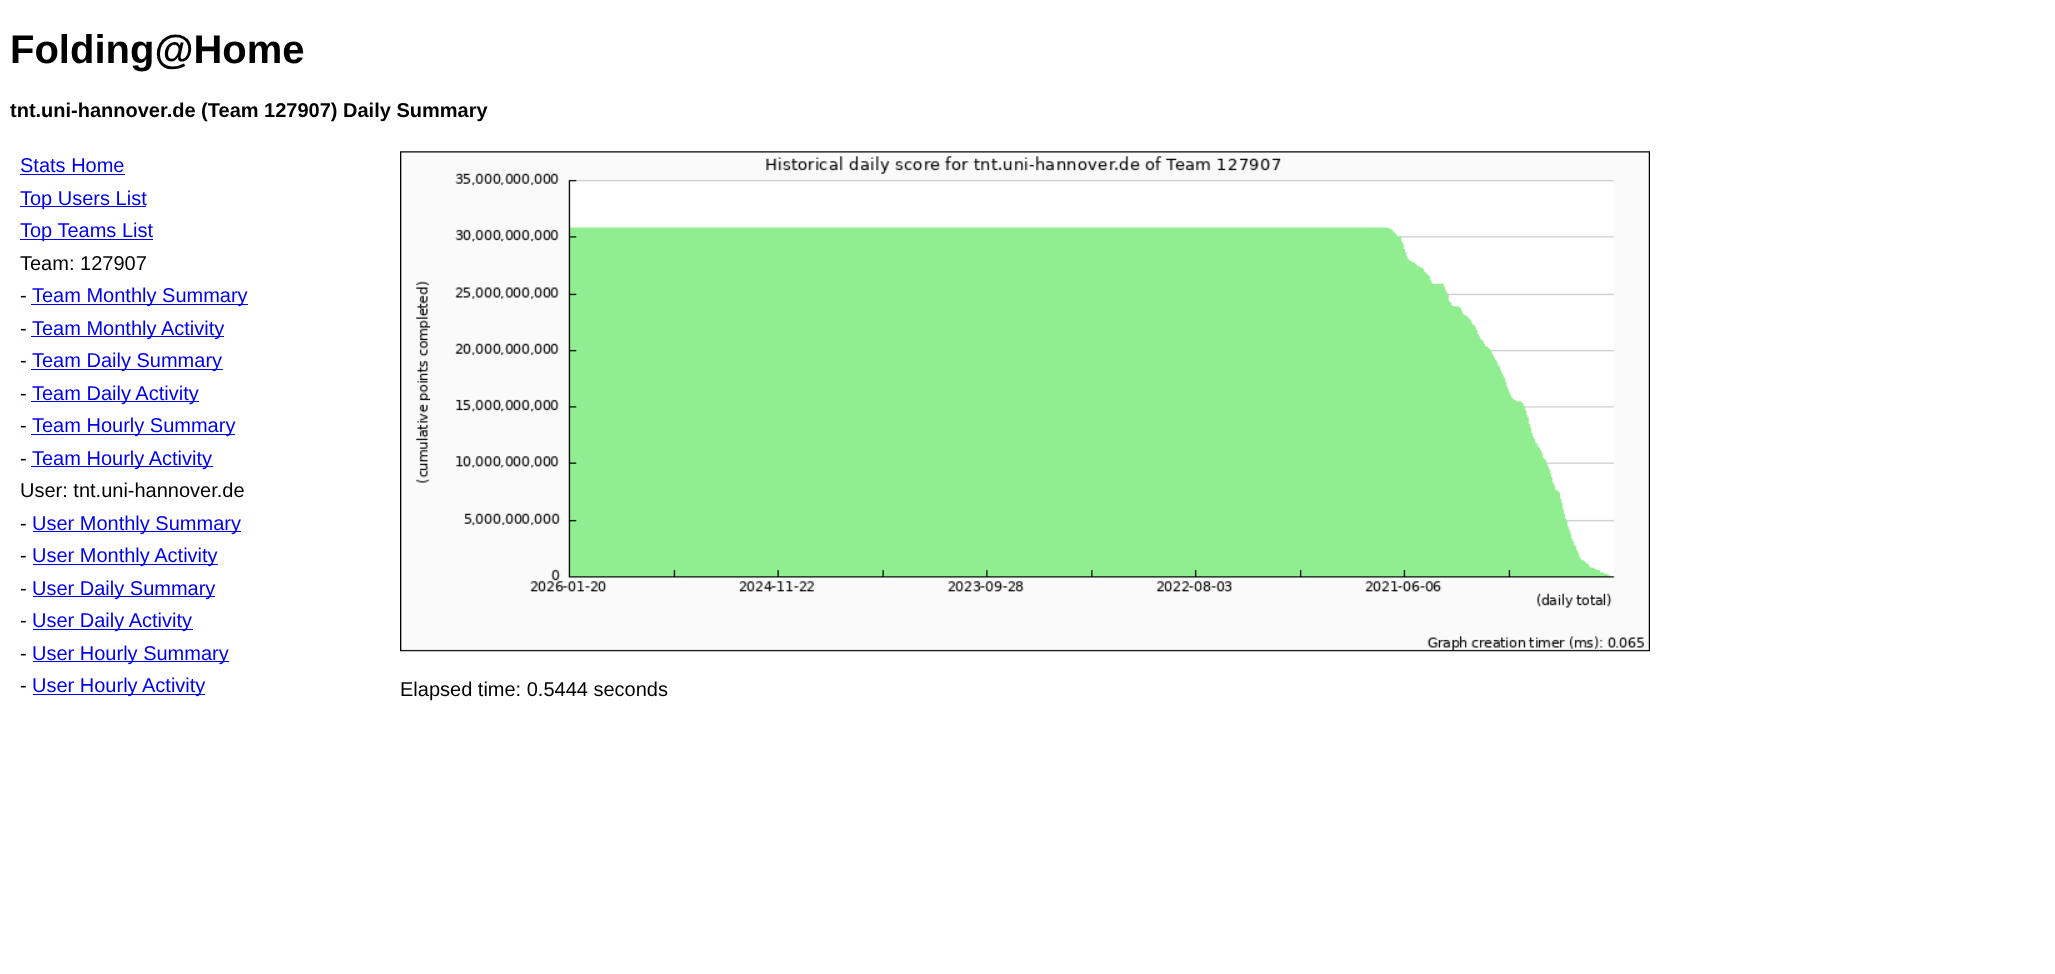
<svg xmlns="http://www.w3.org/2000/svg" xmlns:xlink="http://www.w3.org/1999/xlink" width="2055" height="974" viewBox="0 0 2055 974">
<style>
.cls-1{font:bold 40px Liberation Sans;fill:#000000}
.cls-2{font:bold 20px Liberation Sans;fill:#000000}
.cls-3{font:20px Liberation Sans;fill:#0000ee}
.cls-4{font:20px Liberation Sans;fill:#000000}
</style>
<rect width="100%" height="100%" fill="#ffffff"/>
<rect fill="#0000ee" x="20" y="174" width="105" height="1"/>
<rect fill="#0000ee" x="20" y="206" width="126" height="1"/>
<rect fill="#0000ee" x="20" y="239" width="133" height="1"/>
<rect fill="#0000ee" x="31" y="304" width="217" height="1"/>
<rect fill="#0000ee" x="31" y="336" width="193" height="1"/>
<rect fill="#0000ee" x="31" y="369" width="192" height="1"/>
<rect fill="#0000ee" x="31" y="401" width="168" height="1"/>
<rect fill="#0000ee" x="31" y="434" width="204" height="1"/>
<rect fill="#0000ee" x="31" y="466" width="182" height="1"/>
<rect fill="#0000ee" x="33" y="531" width="208" height="1"/>
<rect fill="#0000ee" x="33" y="564" width="185" height="1"/>
<rect fill="#0000ee" x="33" y="596" width="182" height="1"/>
<rect fill="#0000ee" x="33" y="629" width="160" height="1"/>
<rect fill="#0000ee" x="33" y="661" width="196" height="1"/>
<rect fill="#0000ee" x="33" y="694" width="172" height="1"/>
<image xlink:href="image0.png" x="400" y="151" width="1250" height="501"/>
<text class="cls-1" x="10" y="63">Folding@Home</text>
<text class="cls-2" x="10" y="117">tnt.uni-hannover.de (Team 127907) Daily Summary</text>
<text class="cls-3"><tspan x="20" y="172">Stats Home</tspan><tspan x="20" y="205">Top Users List</tspan><tspan x="20" y="237">Top Teams List</tspan></text>
<text class="cls-4"><tspan x="20" y="270">Team: 127907</tspan><tspan x="20" y="302">-</tspan></text>
<text class="cls-3" x="32" y="302">Team Monthly Summary</text>
<text class="cls-4" x="20" y="335">-</text>
<text class="cls-3" x="32" y="335">Team Monthly Activity</text>
<text class="cls-4" x="20" y="367">-</text>
<text class="cls-3" x="32" y="367">Team Daily Summary</text>
<text class="cls-4" x="20" y="400">-</text>
<text class="cls-3" x="32" y="400">Team Daily Activity</text>
<text class="cls-4" x="20" y="432">-</text>
<text class="cls-3" x="32" y="432">Team Hourly Summary</text>
<text class="cls-4" x="20" y="465">-</text>
<text class="cls-3" x="32" y="465">Team Hourly Activity</text>
<text class="cls-4"><tspan x="20" y="497">User: tnt.uni-hannover.de</tspan><tspan x="20" y="530">-</tspan></text>
<text class="cls-3" x="32" y="530">User Monthly Summary</text>
<text class="cls-4" x="20" y="562">-</text>
<text class="cls-3" x="32" y="562">User Monthly Activity</text>
<text class="cls-4" x="20" y="595">-</text>
<text class="cls-3" x="32" y="595">User Daily Summary</text>
<text class="cls-4" x="20" y="627">-</text>
<text class="cls-3" x="32" y="627">User Daily Activity</text>
<text class="cls-4" x="20" y="660">-</text>
<text class="cls-3" x="32" y="660">User Hourly Summary</text>
<text class="cls-4" x="20" y="692">-</text>
<text class="cls-3" x="32" y="692">User Hourly Activity</text>
<text class="cls-4" x="400" y="696">Elapsed time: 0.5444 seconds</text>
</svg>
